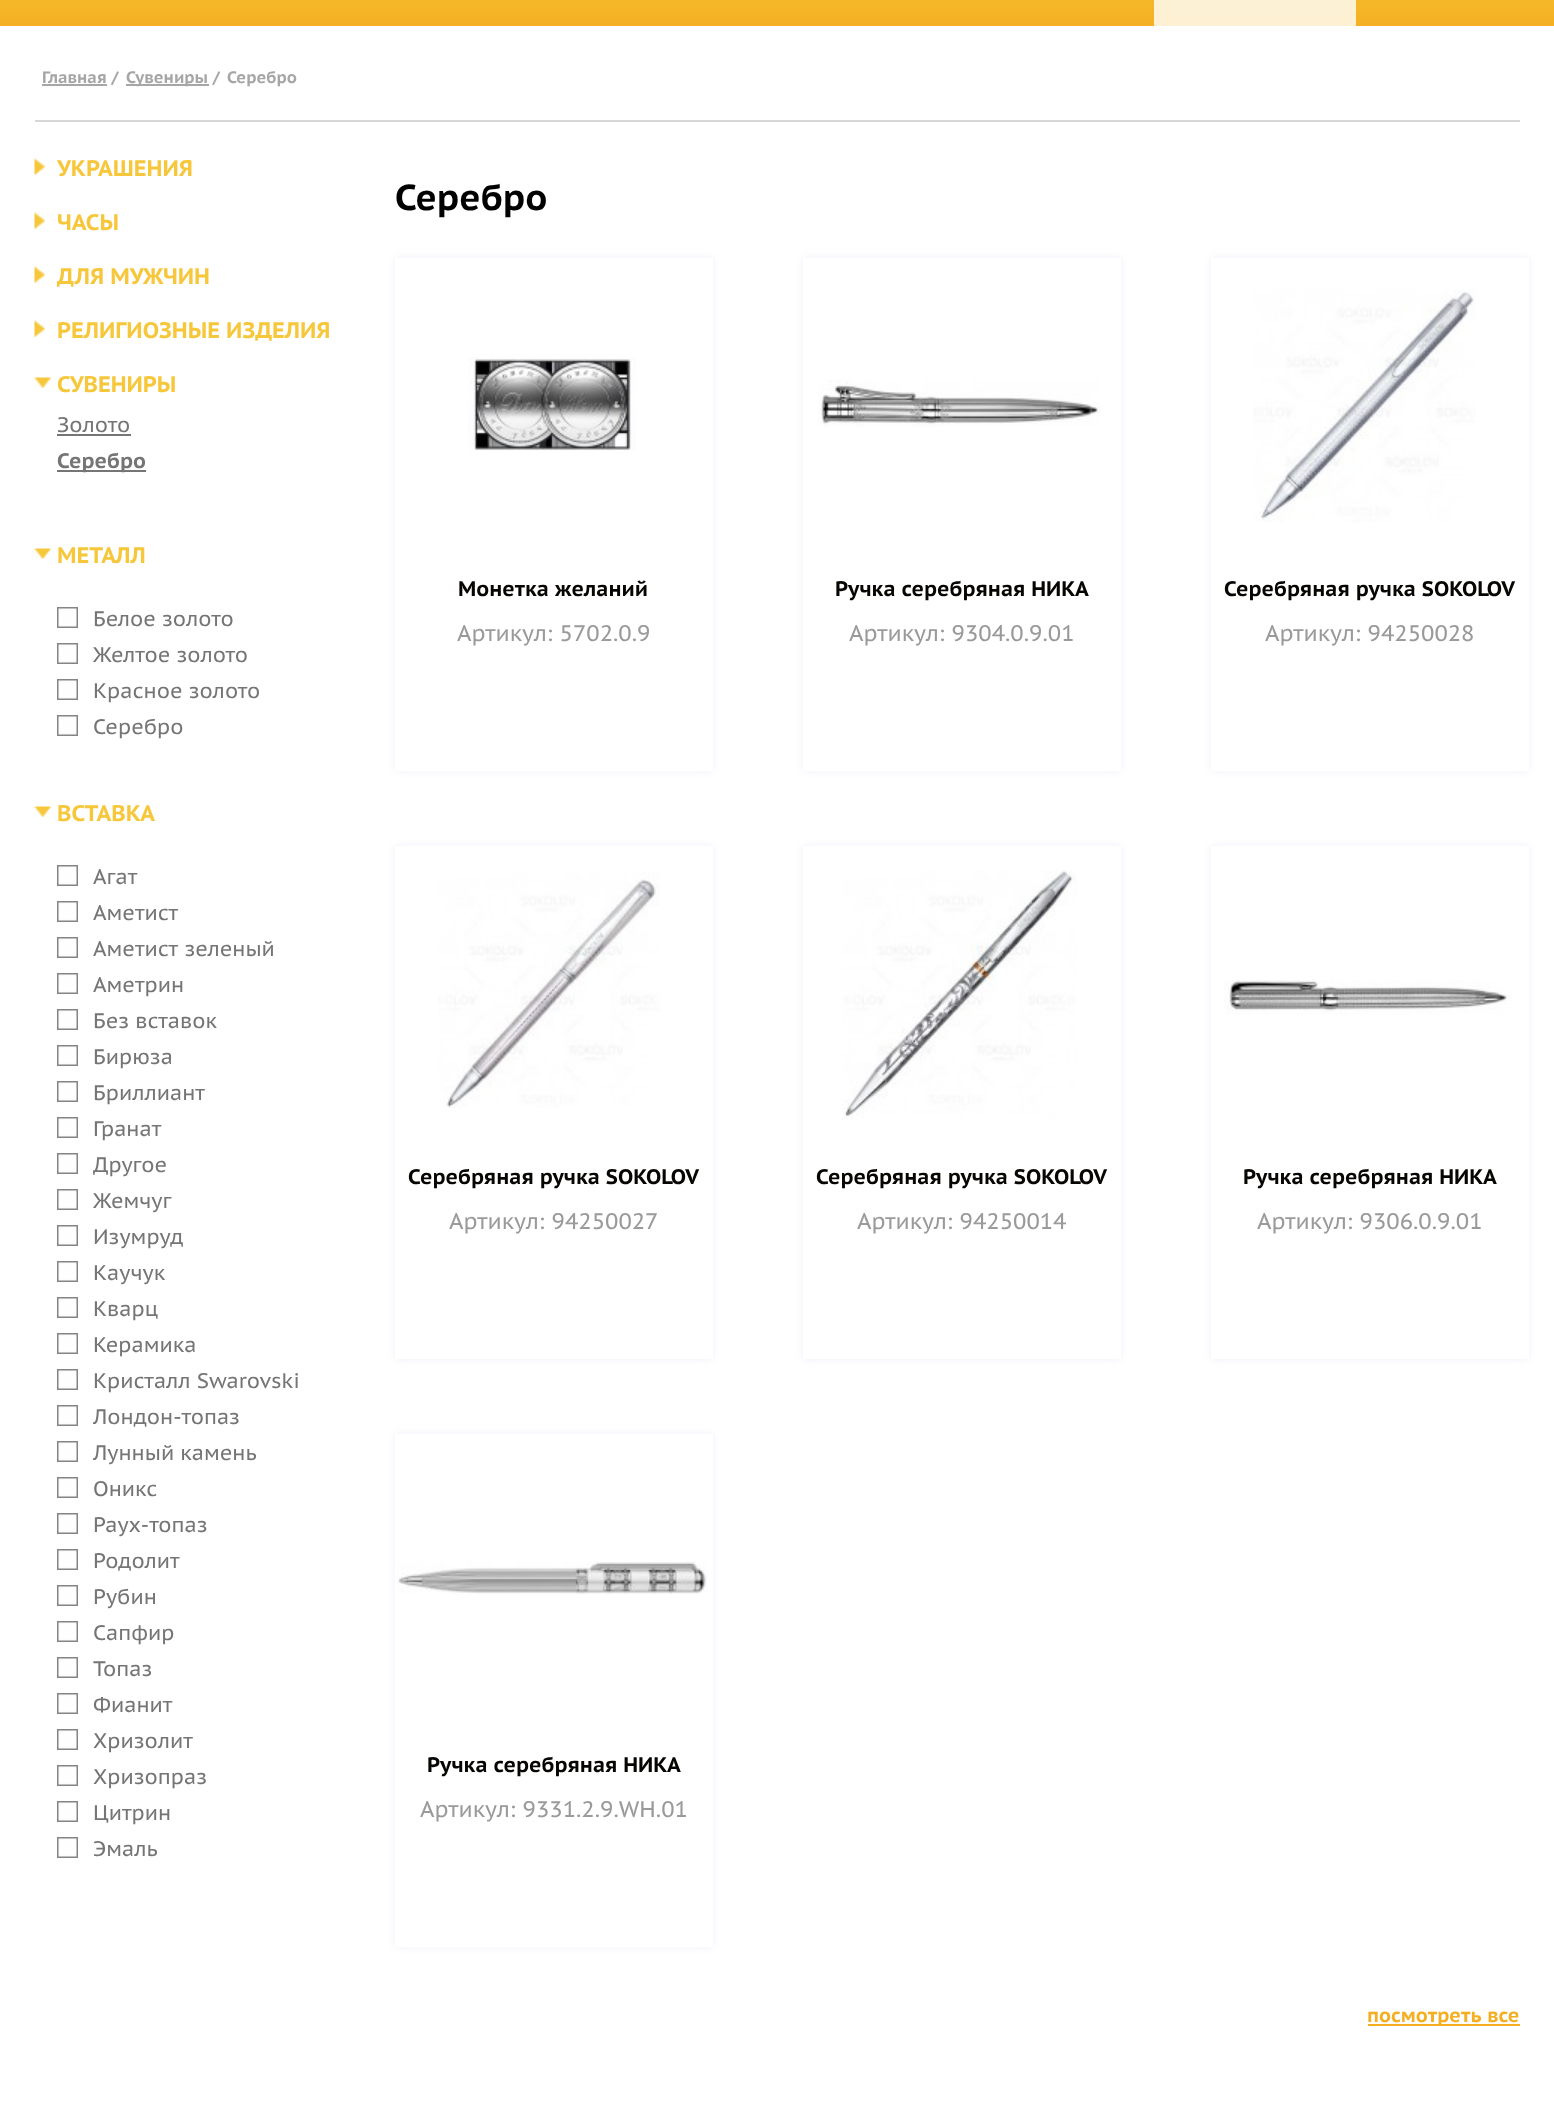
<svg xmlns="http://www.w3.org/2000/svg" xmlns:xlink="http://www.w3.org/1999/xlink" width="1554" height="2124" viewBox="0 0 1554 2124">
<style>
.cls-1{font:bold 16.5px PT Sans Caption;fill:#a6a6a6}
.cls-2{font:bold 22.5px PT Sans Caption;fill:#f7c73b}
.cls-3{font:21px PT Sans Caption;fill:#757575}
.cls-4{font:bold 21px PT Sans Caption;fill:#757575}
.cls-5{font:bold 36px PT Sans Caption;fill:#000000}
.cls-6{font:bold 21px PT Sans Caption;fill:#070502}
.cls-7{font:22.5px PT Sans Caption;fill:#9a9a9a}
.cls-8{font:bold 19.5px PT Sans Caption;fill:#f4ae1f}
</style>
<defs>
<linearGradient id="g1" gradientUnits="userSpaceOnUse" x1="777" y1="-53" x2="777" y2="26"><stop offset="0" stop-color="#f7c73b"/><stop offset="1" stop-color="#f4b021"/></linearGradient>
<linearGradient id="g2" gradientUnits="userSpaceOnUse" x1="1255" y1="-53" x2="1255" y2="26"><stop offset="0" stop-color="#fdf4d8"/><stop offset="1" stop-color="#fdf0d3"/></linearGradient>
<clipPath id="clip1"><rect x="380" y="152" width="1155" height="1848"/></clipPath>
</defs>
<rect width="100%" height="100%" fill="#ffffff"/>
<rect fill="url(#g1)" x="0" y="0" width="1554" height="26"/>
<rect fill="url(#g2)" x="1154" y="0" width="202" height="26"/>
<rect fill="#d7d7d7" x="35" y="120" width="1485" height="2"/>
<rect fill="#a6a6a6" x="42" y="84" width="65" height="2"/>
<rect fill="#a6a6a6" x="126" y="84" width="83" height="2"/>
<image xlink:href="image0.png" x="34" y="158" width="11" height="17"/>
<image xlink:href="image0.png" x="34" y="212" width="11" height="17"/>
<image xlink:href="image0.png" x="34" y="266" width="11" height="17"/>
<image xlink:href="image0.png" x="34" y="320" width="11" height="17"/>
<image xlink:href="image1.png" x="34" y="377" width="17" height="11"/>
<rect fill="#757575" x="57" y="434" width="74" height="2"/>
<rect fill="#757575" x="57" y="470" width="89" height="2"/>
<image xlink:href="image1.png" x="34" y="548" width="17" height="11"/>
<image xlink:href="image2.png" x="57" y="607" width="21" height="21"/>
<image xlink:href="image2.png" x="57" y="643" width="21" height="21"/>
<image xlink:href="image2.png" x="57" y="679" width="21" height="21"/>
<image xlink:href="image2.png" x="57" y="715" width="21" height="21"/>
<image xlink:href="image1.png" x="34" y="806" width="17" height="11"/>
<image xlink:href="image2.png" x="57" y="865" width="21" height="21"/>
<image xlink:href="image2.png" x="57" y="901" width="21" height="21"/>
<image xlink:href="image2.png" x="57" y="937" width="21" height="21"/>
<image xlink:href="image2.png" x="57" y="973" width="21" height="21"/>
<image xlink:href="image2.png" x="57" y="1009" width="21" height="21"/>
<image xlink:href="image2.png" x="57" y="1045" width="21" height="21"/>
<image xlink:href="image2.png" x="57" y="1081" width="21" height="21"/>
<image xlink:href="image2.png" x="57" y="1117" width="21" height="21"/>
<image xlink:href="image2.png" x="57" y="1153" width="21" height="21"/>
<image xlink:href="image2.png" x="57" y="1189" width="21" height="21"/>
<image xlink:href="image2.png" x="57" y="1225" width="21" height="21"/>
<image xlink:href="image2.png" x="57" y="1261" width="21" height="21"/>
<image xlink:href="image2.png" x="57" y="1297" width="21" height="21"/>
<image xlink:href="image2.png" x="57" y="1333" width="21" height="21"/>
<image xlink:href="image2.png" x="57" y="1369" width="21" height="21"/>
<image xlink:href="image2.png" x="57" y="1405" width="21" height="21"/>
<image xlink:href="image2.png" x="57" y="1441" width="21" height="21"/>
<image xlink:href="image2.png" x="57" y="1477" width="21" height="21"/>
<image xlink:href="image2.png" x="57" y="1513" width="21" height="21"/>
<image xlink:href="image2.png" x="57" y="1549" width="21" height="21"/>
<image xlink:href="image2.png" x="57" y="1585" width="21" height="21"/>
<image xlink:href="image2.png" x="57" y="1621" width="21" height="21"/>
<image xlink:href="image2.png" x="57" y="1657" width="21" height="21"/>
<image xlink:href="image2.png" x="57" y="1693" width="21" height="21"/>
<image xlink:href="image2.png" x="57" y="1729" width="21" height="21"/>
<image xlink:href="image2.png" x="57" y="1765" width="21" height="21"/>
<image xlink:href="image2.png" x="57" y="1801" width="21" height="21"/>
<image xlink:href="image2.png" x="57" y="1837" width="21" height="21"/>
<rect fill="#f0f0fb" filter="blur(4.5px)" x="395" y="258" width="318" height="513"/>
<rect fill="#ffffff" x="395" y="258" width="318" height="513"/>
<image xlink:href="image3.png" x="468" y="357" width="168" height="94"/>
<rect fill="#f0f0fb" filter="blur(4.5px)" x="803" y="258" width="318" height="513"/>
<rect fill="#ffffff" x="803" y="258" width="318" height="513"/>
<image xlink:href="image4.png" x="818" y="379" width="283" height="48"/>
<g clip-path="url(#clip1)">
<rect fill="#f0f0fb" filter="blur(4.5px)" x="1211" y="258" width="318" height="513"/>
</g>
<rect fill="#ffffff" x="1211" y="258" width="318" height="513"/>
<image xlink:href="image5.png" x="1253" y="289" width="223" height="234"/>
<rect fill="#f0f0fb" filter="blur(4.5px)" x="395" y="846" width="318" height="513"/>
<rect fill="#ffffff" x="395" y="846" width="318" height="513"/>
<image xlink:href="image6.png" x="438" y="871" width="222" height="237"/>
<rect fill="#f0f0fb" filter="blur(4.5px)" x="803" y="846" width="318" height="513"/>
<rect fill="#ffffff" x="803" y="846" width="318" height="513"/>
<image xlink:href="image7.png" x="842" y="870" width="235" height="250"/>
<g clip-path="url(#clip1)">
<rect fill="#f0f0fb" filter="blur(4.5px)" x="1211" y="846" width="318" height="513"/>
</g>
<rect fill="#ffffff" x="1211" y="846" width="318" height="513"/>
<image xlink:href="image8.png" x="1224" y="980" width="288" height="35"/>
<rect fill="#f0f0fb" filter="blur(4.5px)" x="395" y="1434" width="318" height="513"/>
<rect fill="#ffffff" x="395" y="1434" width="318" height="513"/>
<image xlink:href="image9.png" x="396" y="1561" width="312" height="34"/>
<rect fill="#f4ae1f" x="1368" y="2024" width="152" height="2"/>
<text class="cls-1" x="42" y="83">Главная /</text>
<text class="cls-1" x="126" y="83">Сувениры /</text>
<text class="cls-1" x="227" y="83">Серебро</text>
<text class="cls-2" x="57" y="176">УКРАШЕНИЯ</text>
<text class="cls-2" x="57" y="230">ЧАСЫ</text>
<text class="cls-2" x="57" y="284">ДЛЯ МУЖЧИН</text>
<text class="cls-2" x="57" y="338">РЕЛИГИОЗНЫЕ ИЗДЕЛИЯ</text>
<text class="cls-2" x="57" y="392">СУВЕНИРЫ</text>
<text class="cls-3" x="57" y="432">Золото</text>
<text class="cls-4" x="57" y="468">Серебро</text>
<text class="cls-2" x="57" y="563">МЕТАЛЛ</text>
<text class="cls-3"><tspan x="93" y="626">Белое золото</tspan><tspan x="93" y="662">Желтое золото</tspan><tspan x="93" y="698">Красное золото</tspan><tspan x="93" y="734">Серебро</tspan></text>
<text class="cls-2" x="57" y="821">ВСТАВКА</text>
<text class="cls-3"><tspan x="93" y="884">Агат</tspan><tspan x="93" y="920">Аметист</tspan><tspan x="93" y="956" word-spacing="1">Аметист зеленый</tspan><tspan x="93" y="992">Аметрин</tspan><tspan x="93" y="1028">Без вставок</tspan><tspan x="93" y="1064">Бирюза</tspan><tspan x="93" y="1100">Бриллиант</tspan><tspan x="93" y="1136">Гранат</tspan><tspan x="93" y="1172">Другое</tspan><tspan x="93" y="1208">Жемчуг</tspan><tspan x="93" y="1244">Изумруд</tspan><tspan x="93" y="1280">Каучук</tspan><tspan x="93" y="1316">Кварц</tspan><tspan x="93" y="1352">Керамика</tspan><tspan x="93" y="1388">Кристалл Swarovski</tspan><tspan x="93" y="1424">Лондон-топаз</tspan><tspan x="93" y="1460">Лунный камень</tspan><tspan x="93" y="1496">Оникс</tspan><tspan x="93" y="1532">Раух-топаз</tspan><tspan x="93" y="1568">Родолит</tspan><tspan x="93" y="1604">Рубин</tspan><tspan x="93" y="1640">Сапфир</tspan><tspan x="93" y="1676">Топаз</tspan><tspan x="93" y="1712">Фианит</tspan><tspan x="93" y="1748">Хризолит</tspan><tspan x="93" y="1784">Хризопраз</tspan><tspan x="93" y="1820">Цитрин</tspan><tspan x="93" y="1856">Эмаль</tspan></text>
<text class="cls-5" x="395" y="210">Серебро</text>
<text class="cls-6" x="458" y="596">Монетка желаний</text>
<text class="cls-7" x="457" y="641">Артикул: 5702.0.9</text>
<text class="cls-6" x="835" y="596">Ручка серебряная НИКА</text>
<text class="cls-7" x="849" y="641">Артикул: 9304.0.9.01</text>
<text class="cls-6" x="1224" y="596">Серебряная ручка SOKOLOV</text>
<text class="cls-7" x="1265" y="641">Артикул: 94250028</text>
<text class="cls-6" x="408" y="1184">Серебряная ручка SOKOLOV</text>
<text class="cls-7" x="449" y="1229">Артикул: 94250027</text>
<text class="cls-6" x="816" y="1184">Серебряная ручка SOKOLOV</text>
<text class="cls-7" x="857" y="1229">Артикул: 94250014</text>
<text class="cls-6" x="1243" y="1184">Ручка серебряная НИКА</text>
<text class="cls-7" x="1257" y="1229">Артикул: 9306.0.9.01</text>
<text class="cls-6" x="427" y="1772">Ручка серебряная НИКА</text>
<text class="cls-7" x="420" y="1817">Артикул: 9331.2.9.WH.01</text>
<text class="cls-8" x="1367" y="2022" word-spacing="1">посмотреть все</text>
</svg>
